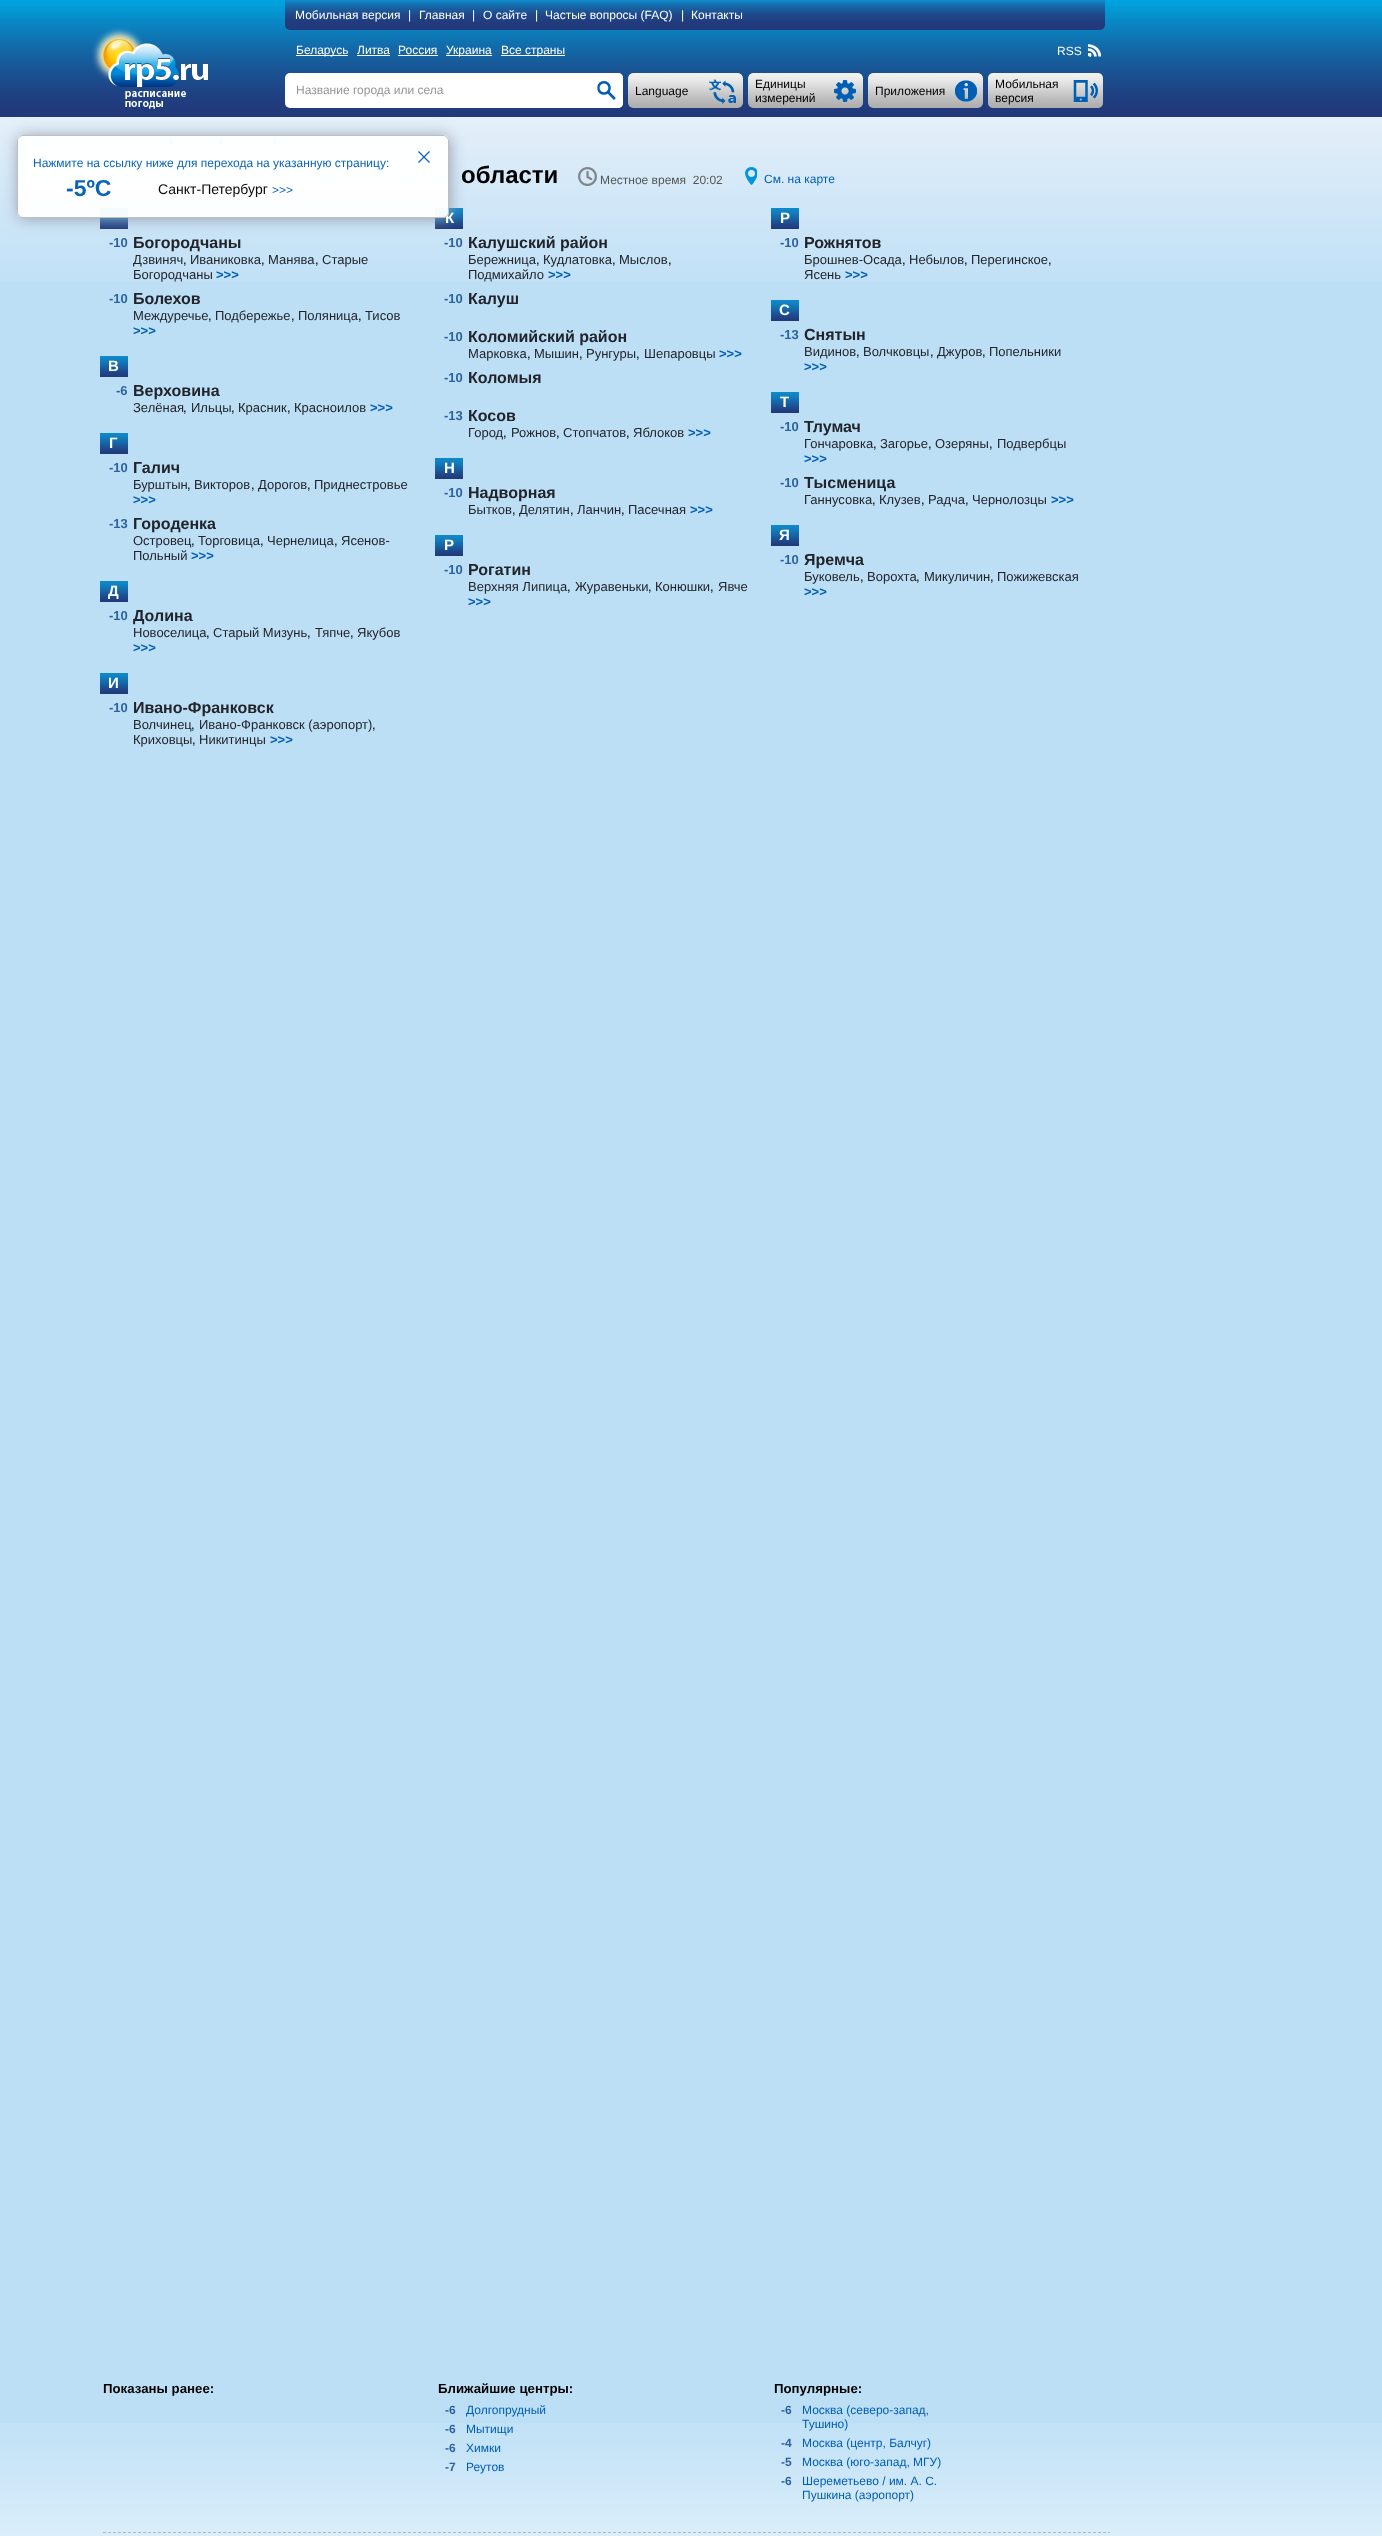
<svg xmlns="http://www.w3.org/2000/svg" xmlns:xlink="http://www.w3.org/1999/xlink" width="1382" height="2536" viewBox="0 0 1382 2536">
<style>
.cls-1{font:12px Liberation Sans;fill:#ffffff}
.cls-2{font:12px Liberation Sans;fill:#959595}
.cls-3{font:12px Liberation Sans;fill:#000000}
.cls-4{font:bold 24px Liberation Sans;fill:#000000}
.cls-5{font:12px Liberation Sans;fill:#555555}
.cls-6{font:12px Liberation Sans;fill:#005eb5}
.cls-7{font:bold 13px Liberation Sans;fill:#2b63a0}
.cls-8{font:bold 16px Liberation Sans;fill:#21242b}
.cls-9{font:13px Liberation Sans;fill:#21242b}
.cls-10{font:13px Liberation Sans;fill:#000000}
.cls-11{font:bold 13px Liberation Sans;fill:#005eb5}
.cls-12{font:bold 15px Liberation Sans;fill:#ffffff}
.cls-13{font:12px Liberation Sans;fill:#0a64b8}
.cls-14{font:bold 23px Liberation Sans;fill:#0a64b8}
.cls-15{font:14px Liberation Sans;fill:#0a0a0a}
.cls-16{font:bold 13.25px Liberation Sans;fill:#000000}
.cls-17{font:bold 12px Liberation Sans;fill:#2b63a0}
</style>
<defs>
<clipPath id="clip1"><path d="M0 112H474V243H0ZM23 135H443C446.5 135 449 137.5 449 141V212C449 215.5 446.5 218 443 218H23C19.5 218 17 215.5 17 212V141C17 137.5 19.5 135 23 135Z" clip-rule="evenodd"/></clipPath>
</defs>
<rect width="100%" height="100%" fill="#bddff6"/>
<image xlink:href="image0.png" x="0" y="123" width="1382" height="159"/>
<image xlink:href="image1.png" x="0" y="0" width="1382" height="123"/>
<image xlink:href="image2.png" x="285" y="0" width="820" height="30"/>
<image xlink:href="image3.png" x="92" y="27" width="116" height="82"/>
<rect fill="#ffffff" x="296" y="55" width="52" height="1"/>
<rect fill="#ffffff" x="357" y="55" width="33" height="1"/>
<rect fill="#ffffff" x="398" y="55" width="40" height="1"/>
<rect fill="#ffffff" x="446" y="55" width="46" height="1"/>
<rect fill="#ffffff" x="501" y="55" width="64" height="1"/>
<image xlink:href="image4.png" x="1088" y="44" width="13" height="13"/>
<rect fill="#ffffff" x="285" y="73" width="338" height="35" rx="5"/>
<image xlink:href="image5.png" x="597" y="73" width="26" height="35"/>
<image xlink:href="image6.png" x="628" y="73" width="115" height="35"/>
<image xlink:href="image7.png" x="748" y="73" width="115" height="35"/>
<image xlink:href="image8.png" x="868" y="73" width="115" height="35"/>
<image xlink:href="image9.png" x="988" y="73" width="115" height="35"/>
<rect fill="#0096de" x="170" y="139" width="3" height="5"/>
<rect fill="#0096de" x="219" y="139" width="3" height="5"/>
<rect fill="#0096de" x="273" y="139" width="3" height="5"/>
<image xlink:href="image10.png" x="578" y="167" width="19" height="19"/>
<image xlink:href="image11.png" x="745" y="167" width="12" height="18"/>
<image xlink:href="image12.png" x="100" y="208" width="28" height="21"/>
<image xlink:href="image12.png" x="100" y="356" width="28" height="21"/>
<image xlink:href="image12.png" x="100" y="433" width="28" height="21"/>
<image xlink:href="image12.png" x="100" y="581" width="28" height="21"/>
<image xlink:href="image12.png" x="100" y="673" width="28" height="21"/>
<image xlink:href="image12.png" x="435" y="208" width="28" height="21"/>
<image xlink:href="image12.png" x="435" y="458" width="28" height="21"/>
<image xlink:href="image12.png" x="435" y="535" width="28" height="21"/>
<image xlink:href="image12.png" x="771" y="208" width="28" height="21"/>
<image xlink:href="image12.png" x="771" y="300" width="28" height="21"/>
<image xlink:href="image12.png" x="771" y="392" width="28" height="21"/>
<image xlink:href="image12.png" x="771" y="525" width="28" height="21"/>
<g clip-path="url(#clip1)">
<rect fill="#969caf" fill-opacity="0.96" filter="blur(7.5px)" x="18" y="136" width="432" height="83" rx="6"/>
</g>
<image xlink:href="image14.png" x="0" y="2423" width="1382" height="113"/>
<path fill="none" stroke="#aeb9c0" stroke-dasharray="3 2" d="M103 2532.5H1110"/>
<text class="cls-1" x="295" y="19">Мобильная версия</text>
<text class="cls-1" x="408" y="19">|</text>
<text class="cls-1" x="419" y="19">Главная</text>
<text class="cls-1" x="472" y="19">|</text>
<text class="cls-1" x="483" y="19">О сайте</text>
<text class="cls-1" x="535" y="19">|</text>
<text class="cls-1" x="545" y="19">Частые вопросы (FAQ)</text>
<text class="cls-1" x="681" y="19">|</text>
<text class="cls-1" x="691" y="19">Контакты</text>
<text class="cls-1" x="296" y="54">Беларусь</text>
<text class="cls-1" x="357" y="54">Литва</text>
<text class="cls-1" x="398" y="54">Россия</text>
<text class="cls-1" x="446" y="54">Украина</text>
<text class="cls-1" x="501" y="54">Все страны</text>
<text class="cls-1" x="1057" y="55">RSS</text>
<text class="cls-2" x="296" y="94">Название города или села</text>
<text class="cls-3" x="635" y="95">Language</text>
<text class="cls-3"><tspan x="755" y="88">Единицы</tspan><tspan x="755" y="102">измерений</tspan></text>
<text class="cls-3" x="875" y="95">Приложения</text>
<text class="cls-3"><tspan x="995" y="88">Мобильная</tspan><tspan x="995" y="102">версия</tspan></text>
<text class="cls-4" x="461" y="183">области</text>
<text class="cls-5" xml:space="preserve" x="600" y="184">Местное время  20:02</text>
<text class="cls-6" x="764" y="183">См. на карте</text>
<text class="cls-7" x="109" y="247">-10</text>
<text class="cls-8" x="133" y="248">Богородчаны</text>
<text class="cls-9" x="133" y="264">Дзвиняч</text>
<text class="cls-10" x="183" y="264">,</text>
<text class="cls-9" x="190" y="264">Иваниковка</text>
<text class="cls-10" x="261" y="264">,</text>
<text class="cls-9" x="268" y="264">Манява</text>
<text class="cls-10" x="315" y="264">,</text>
<text class="cls-9" x="322" y="264">Старые</text>
<text class="cls-9" x="133" y="279">Богородчаны</text>
<text class="cls-11" x="216" y="279">&gt;&gt;&gt;</text>
<text class="cls-7" x="109" y="303">-10</text>
<text class="cls-8" x="133" y="304">Болехов</text>
<text class="cls-9" x="133" y="320">Междуречье</text>
<text class="cls-10" x="208" y="320">,</text>
<text class="cls-9" x="215" y="320">Подбережье</text>
<text class="cls-10" x="291" y="320">,</text>
<text class="cls-9" x="298" y="320">Поляница</text>
<text class="cls-10" x="358" y="320">,</text>
<text class="cls-9" x="365" y="320">Тисов</text>
<text class="cls-11" x="133" y="335">&gt;&gt;&gt;</text>
<text class="cls-12" x="108" y="371">В</text>
<text class="cls-7" x="116" y="395">-6</text>
<text class="cls-8" x="133" y="396">Верховина</text>
<text class="cls-9" x="133" y="412">Зелёная</text>
<text class="cls-10" x="183" y="412">,</text>
<text class="cls-9" x="191" y="412">Ильцы</text>
<text class="cls-10" x="231" y="412">,</text>
<text class="cls-9" x="238" y="412">Красник</text>
<text class="cls-10" x="287" y="412">,</text>
<text class="cls-9" x="294" y="412">Красноилов</text>
<text class="cls-11" x="370" y="412">&gt;&gt;&gt;</text>
<text class="cls-12" x="109" y="448">Г</text>
<text class="cls-7" x="109" y="472">-10</text>
<text class="cls-8" x="133" y="473">Галич</text>
<text class="cls-9" x="133" y="489">Бурштын</text>
<text class="cls-10" x="187" y="489">,</text>
<text class="cls-9" x="194" y="489">Викторов</text>
<text class="cls-10" x="251" y="489">,</text>
<text class="cls-9" x="258" y="489">Дорогов</text>
<text class="cls-10" x="307" y="489">,</text>
<text class="cls-9" x="314" y="489">Приднестровье</text>
<text class="cls-11" x="133" y="504">&gt;&gt;&gt;</text>
<text class="cls-7" x="109" y="528">-13</text>
<text class="cls-8" x="133" y="529">Городенка</text>
<text class="cls-9" x="133" y="545">Островец</text>
<text class="cls-10" x="191" y="545">,</text>
<text class="cls-9" x="198" y="545">Торговица</text>
<text class="cls-10" x="260" y="545">,</text>
<text class="cls-9" x="267" y="545">Чернелица</text>
<text class="cls-10" x="334" y="545">,</text>
<text class="cls-9" x="341" y="545">Ясенов-</text>
<text class="cls-9" x="133" y="560">Польный</text>
<text class="cls-11" x="191" y="560">&gt;&gt;&gt;</text>
<text class="cls-12" x="108" y="596">Д</text>
<text class="cls-7" x="109" y="620">-10</text>
<text class="cls-8" x="133" y="621">Долина</text>
<text class="cls-9" x="133" y="637">Новоселица</text>
<text class="cls-10" x="206" y="637">,</text>
<text class="cls-9" x="213" y="637">Старый Мизунь</text>
<text class="cls-10" x="307" y="637">,</text>
<text class="cls-9" x="315" y="637">Тяпче</text>
<text class="cls-10" x="350" y="637">,</text>
<text class="cls-9" x="357" y="637">Якубов</text>
<text class="cls-11" x="133" y="652">&gt;&gt;&gt;</text>
<text class="cls-12" x="108" y="688">И</text>
<text class="cls-7" x="109" y="712">-10</text>
<text class="cls-8" x="133" y="713">Ивано-Франковск</text>
<text class="cls-9" x="133" y="729">Волчинец</text>
<text class="cls-10" x="191" y="729">,</text>
<text class="cls-9" x="199" y="729">Ивано-Франковск (аэропорт)</text>
<text class="cls-10" x="372" y="729">,</text>
<text class="cls-9" x="133" y="744">Криховцы</text>
<text class="cls-10" x="192" y="744">,</text>
<text class="cls-9" x="199" y="744">Никитинцы</text>
<text class="cls-11" x="270" y="744">&gt;&gt;&gt;</text>
<text class="cls-12" x="445" y="223">К</text>
<text class="cls-7" x="444" y="247">-10</text>
<text class="cls-8" x="468" y="248">Калушский район</text>
<text class="cls-9" x="468" y="264">Бережница</text>
<text class="cls-10" x="536" y="264">,</text>
<text class="cls-9" x="543" y="264">Кудлатовка</text>
<text class="cls-10" x="612" y="264">,</text>
<text class="cls-9" x="619" y="264">Мыслов</text>
<text class="cls-10" x="668" y="264">,</text>
<text class="cls-9" x="468" y="279">Подмихайло</text>
<text class="cls-11" x="548" y="279">&gt;&gt;&gt;</text>
<text class="cls-7" x="444" y="303">-10</text>
<text class="cls-8" x="468" y="304">Калуш</text>
<text class="cls-7" x="444" y="341">-10</text>
<text class="cls-8" x="468" y="342">Коломийский район</text>
<text class="cls-9" x="468" y="358">Марковка</text>
<text class="cls-10" x="527" y="358">,</text>
<text class="cls-9" x="534" y="358">Мышин</text>
<text class="cls-10" x="579" y="358">,</text>
<text class="cls-9" x="586" y="358">Рунгуры</text>
<text class="cls-10" x="636" y="358">,</text>
<text class="cls-9" x="644" y="358">Шепаровцы</text>
<text class="cls-11" x="719" y="358">&gt;&gt;&gt;</text>
<text class="cls-7" x="444" y="382">-10</text>
<text class="cls-8" x="468" y="383">Коломыя</text>
<text class="cls-7" x="444" y="420">-13</text>
<text class="cls-8" x="468" y="421">Косов</text>
<text class="cls-9" x="468" y="437">Город</text>
<text class="cls-10" x="503" y="437">,</text>
<text class="cls-9" x="511" y="437">Рожнов</text>
<text class="cls-10" x="556" y="437">,</text>
<text class="cls-9" x="563" y="437">Стопчатов</text>
<text class="cls-10" x="626" y="437">,</text>
<text class="cls-9" x="633" y="437">Яблоков</text>
<text class="cls-11" x="688" y="437">&gt;&gt;&gt;</text>
<text class="cls-12" x="444" y="473">Н</text>
<text class="cls-7" x="444" y="497">-10</text>
<text class="cls-8" x="468" y="498">Надворная</text>
<text class="cls-9" x="468" y="514">Бытков</text>
<text class="cls-10" x="512" y="514">,</text>
<text class="cls-9" x="519" y="514">Делятин</text>
<text class="cls-10" x="570" y="514">,</text>
<text class="cls-9" x="577" y="514">Ланчин</text>
<text class="cls-10" x="621" y="514">,</text>
<text class="cls-9" x="628" y="514">Пасечная</text>
<text class="cls-11" x="690" y="514">&gt;&gt;&gt;</text>
<text class="cls-12" x="444" y="550">Р</text>
<text class="cls-7" x="444" y="574">-10</text>
<text class="cls-8" x="468" y="575">Рогатин</text>
<text class="cls-9" x="468" y="591">Верхняя Липица</text>
<text class="cls-10" x="567" y="591">,</text>
<text class="cls-9" x="575" y="591">Журавеньки</text>
<text class="cls-10" x="648" y="591">,</text>
<text class="cls-9" x="655" y="591">Конюшки</text>
<text class="cls-10" x="710" y="591">,</text>
<text class="cls-9" x="718" y="591">Явче</text>
<text class="cls-11" x="468" y="606">&gt;&gt;&gt;</text>
<text class="cls-12" x="780" y="223">Р</text>
<text class="cls-7" x="780" y="247">-10</text>
<text class="cls-8" x="804" y="248">Рожнятов</text>
<text class="cls-9" x="804" y="264">Брошнев-Осада</text>
<text class="cls-10" x="902" y="264">,</text>
<text class="cls-9" x="909" y="264">Небылов</text>
<text class="cls-10" x="964" y="264">,</text>
<text class="cls-9" x="971" y="264">Перегинское</text>
<text class="cls-10" x="1048" y="264">,</text>
<text class="cls-9" x="804" y="279">Ясень</text>
<text class="cls-11" x="845" y="279">&gt;&gt;&gt;</text>
<text class="cls-12" x="779" y="315">С</text>
<text class="cls-7" x="780" y="339">-13</text>
<text class="cls-8" x="804" y="340">Снятын</text>
<text class="cls-9" x="804" y="356">Видинов</text>
<text class="cls-10" x="856" y="356">,</text>
<text class="cls-9" x="863" y="356">Волчковцы</text>
<text class="cls-10" x="930" y="356">,</text>
<text class="cls-9" x="937" y="356">Джуров</text>
<text class="cls-10" x="982" y="356">,</text>
<text class="cls-9" x="989" y="356">Попельники</text>
<text class="cls-11" x="804" y="371">&gt;&gt;&gt;</text>
<text class="cls-12" x="780" y="407">Т</text>
<text class="cls-7" x="780" y="431">-10</text>
<text class="cls-8" x="804" y="432">Тлумач</text>
<text class="cls-9" x="804" y="448">Гончаровка</text>
<text class="cls-10" x="873" y="448">,</text>
<text class="cls-9" x="880" y="448">Загорье</text>
<text class="cls-10" x="928" y="448">,</text>
<text class="cls-9" x="935" y="448">Озеряны</text>
<text class="cls-10" x="989" y="448">,</text>
<text class="cls-9" x="997" y="448">Подвербцы</text>
<text class="cls-11" x="804" y="463">&gt;&gt;&gt;</text>
<text class="cls-7" x="780" y="487">-10</text>
<text class="cls-8" x="804" y="488">Тысменица</text>
<text class="cls-9" x="804" y="504">Ганнусовка</text>
<text class="cls-10" x="872" y="504">,</text>
<text class="cls-9" x="879" y="504">Клузев</text>
<text class="cls-10" x="921" y="504">,</text>
<text class="cls-9" x="928" y="504">Радча</text>
<text class="cls-10" x="965" y="504">,</text>
<text class="cls-9" x="972" y="504">Чернолозцы</text>
<text class="cls-11" x="1051" y="504">&gt;&gt;&gt;</text>
<text class="cls-12" x="779" y="540">Я</text>
<text class="cls-7" x="780" y="564">-10</text>
<text class="cls-8" x="804" y="565">Яремча</text>
<text class="cls-9" x="804" y="581">Буковель</text>
<text class="cls-10" x="860" y="581">,</text>
<text class="cls-9" x="867" y="581">Ворохта</text>
<text class="cls-10" x="916" y="581">,</text>
<text class="cls-9" x="924" y="581">Микуличин</text>
<text class="cls-10" x="990" y="581">,</text>
<text class="cls-9" x="997" y="581">Пожижевская</text>
<text class="cls-11" x="804" y="596">&gt;&gt;&gt;</text>
<rect fill="#ffffff" fill-opacity="0.96" x="17" y="135" width="432" height="83" rx="6"/>
<rect fill="none" stroke="#bbbbbb" stroke-opacity="0.96" x="17.5" y="135.5" width="431" height="82" rx="5.5"/>
<text class="cls-13" x="33" y="167">Нажмите на ссылку ниже для перехода на указанную страницу:</text>
<image xlink:href="image13.png" x="418" y="151" width="12" height="12"/>
<text class="cls-14" x="66" y="196">-5ºC</text>
<text class="cls-15" x="158" y="194">Санкт-Петербург</text>
<text class="cls-13" x="272" y="194">&gt;&gt;&gt;</text>
<text class="cls-16" x="103" y="2393">Показаны ранее:</text>
<text class="cls-16" x="438" y="2393">Ближайшие центры:</text>
<text class="cls-17" x="445" y="2414">-6</text>
<text class="cls-6" x="466" y="2414">Долгопрудный</text>
<text class="cls-17" x="445" y="2433">-6</text>
<text class="cls-6" x="466" y="2433">Мытищи</text>
<text class="cls-17" x="445" y="2452">-6</text>
<text class="cls-6" x="466" y="2452">Химки</text>
<text class="cls-17" x="445" y="2471">-7</text>
<text class="cls-6" x="466" y="2471">Реутов</text>
<text class="cls-16" x="774" y="2393">Популярные:</text>
<text class="cls-17" x="781" y="2414">-6</text>
<text class="cls-6"><tspan x="802" y="2414">Москва (северо-запад,</tspan><tspan x="802" y="2428">Тушино)</tspan></text>
<text class="cls-17" x="781" y="2447">-4</text>
<text class="cls-6" x="802" y="2447">Москва (центр, Балчуг)</text>
<text class="cls-17" x="781" y="2466">-5</text>
<text class="cls-6" x="802" y="2466">Москва (юго-запад, МГУ)</text>
<text class="cls-17" x="781" y="2485">-6</text>
<text class="cls-6"><tspan x="802" y="2485">Шереметьево / им. А. С.</tspan><tspan x="802" y="2499">Пушкина (аэропорт)</tspan></text>
</svg>
